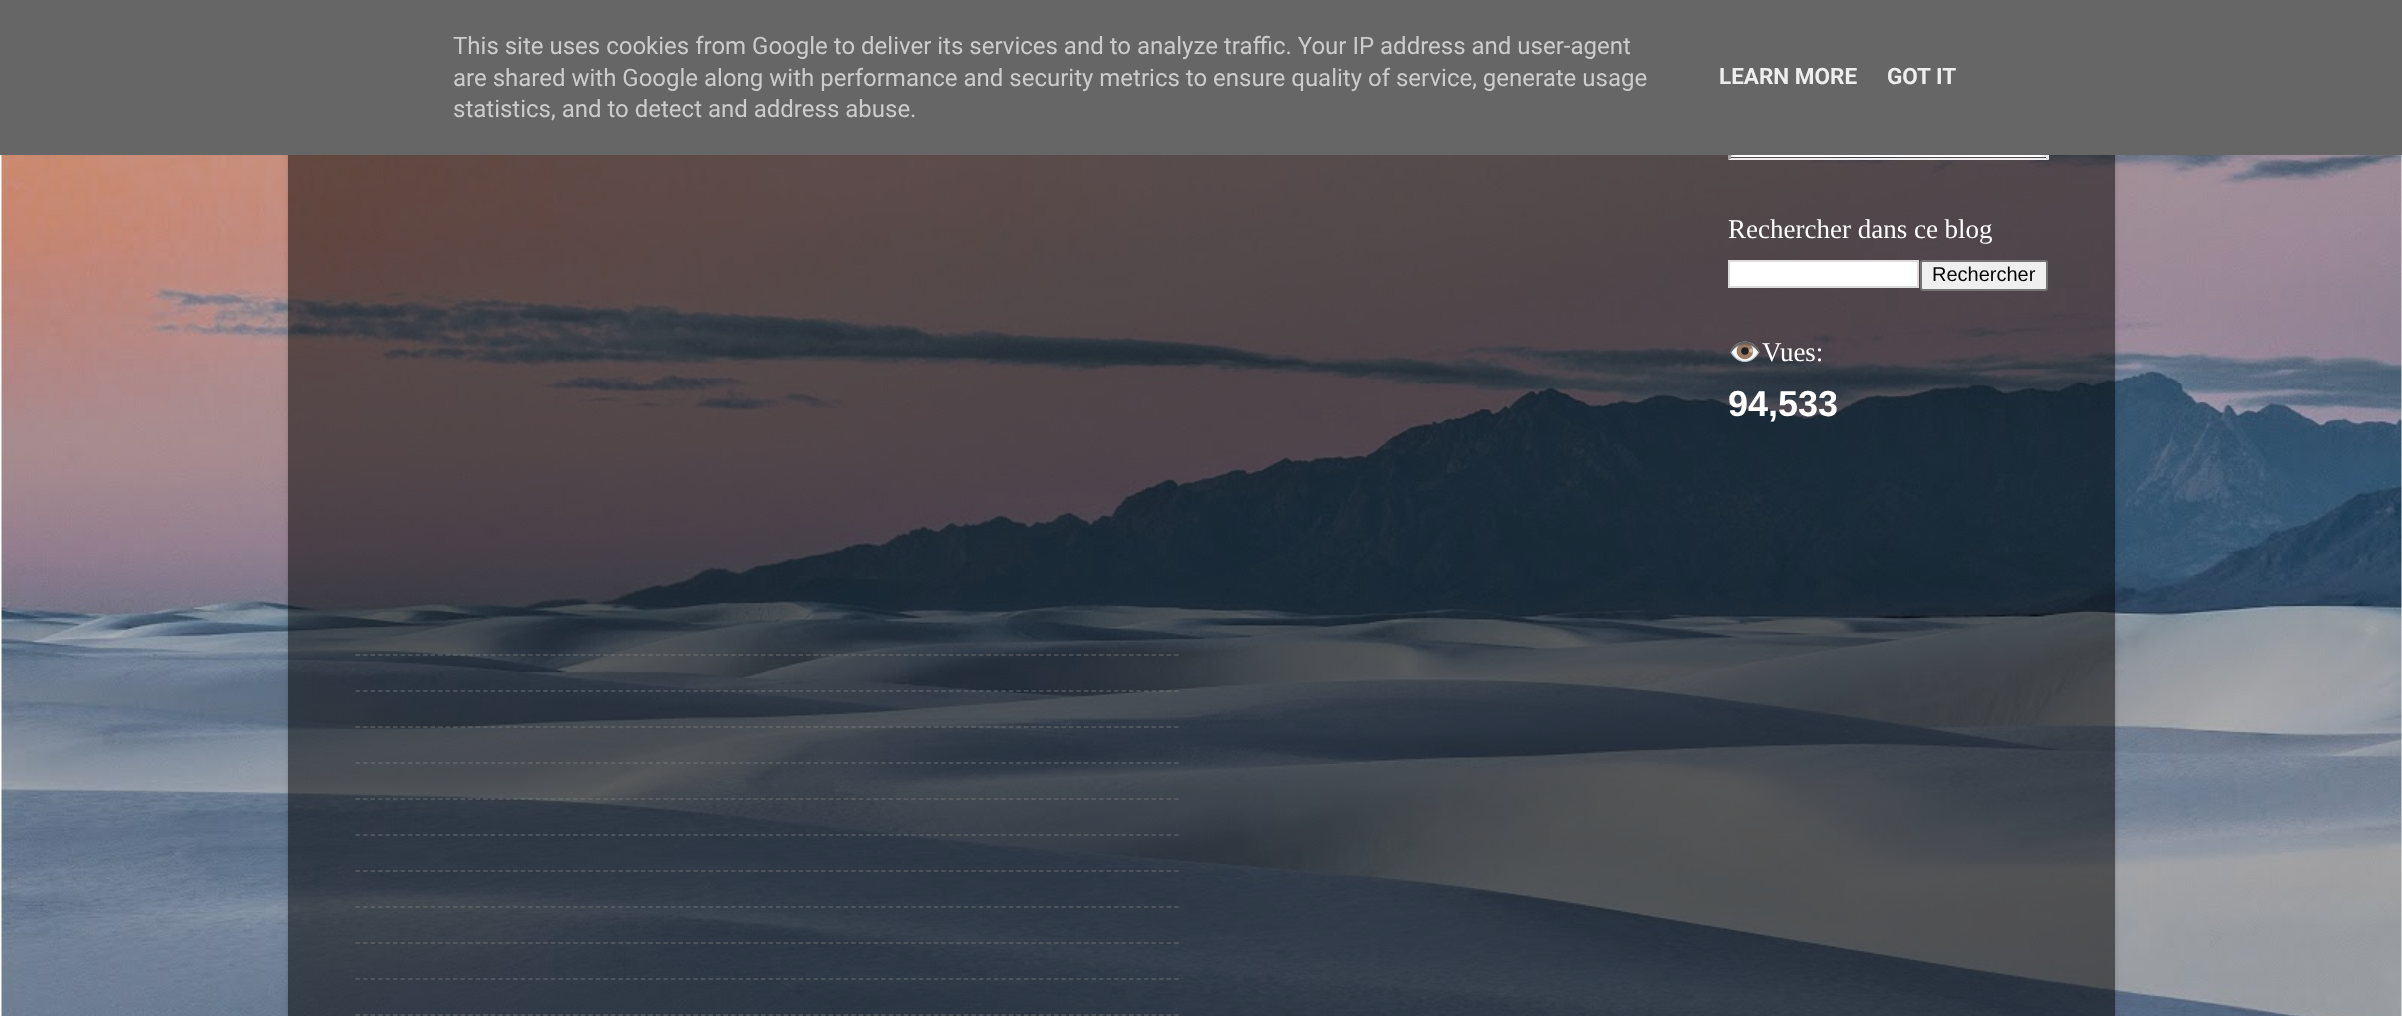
<svg xmlns="http://www.w3.org/2000/svg" xmlns:xlink="http://www.w3.org/1999/xlink" width="2402" height="1016" viewBox="0 0 2402 1016">
<style>
.cls-1{font:24px Roboto;fill:#cccccc}
.cls-2{font:bold 22.5px Roboto;fill:#eeeeee}
.cls-3{font:27px Liberation Serif;fill:#ffffff}
.cls-4{font:20px Liberation Sans;fill:#000000}
.cls-5{font:27px Noto Color Emoji;fill:#ffffff}
.cls-6{font:bold 36px Liberation Sans;fill:#ffffff}
</style>
<defs>
<clipPath id="clip1"><path d="M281 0H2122V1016H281ZM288-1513H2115V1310H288Z" clip-rule="evenodd"/></clipPath>
</defs>
<rect width="100%" height="100%" fill="#ffffff"/>
<image xlink:href="image0.png" x="1" y="155" width="2401" height="861"/>
<g clip-path="url(#clip1)">
<rect fill="#000000" fill-opacity="0.15" filter="blur(2px)" x="288" y="-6" width="1827" height="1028"/>
</g>
<rect fill="#000000" fill-opacity="0.5" x="288" y="155" width="1827" height="861"/>
<path fill="#eeeeee" d="M2049-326V160L2046 158V-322Z"/>
<path fill="#eeeeee" d="M2049 160H1728L1731 158H2046Z"/>
<path fill="#9f9f9f" d="M1728 160V-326L1731-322V158Z"/>
<rect fill="#666666" x="0" y="0" width="2402" height="155"/>
<image xlink:href="image1.png" x="1731" y="155" width="315" height="2"/>
<rect fill="#ffffff" stroke="#dddddd" stroke-width="2" x="1729" y="261" width="189" height="26"/>
<rect fill="#efefef" stroke="#767676" stroke-width="2" x="1921" y="261" width="126" height="29" rx="2"/>
<path fill="none" stroke="#808080" stroke-opacity="0.5" stroke-width="1.5" stroke-dasharray="4.5 3.01" d="M355.5 655H1179"/>
<path fill="none" stroke="#808080" stroke-opacity="0.5" stroke-width="1.5" stroke-dasharray="4.5 3.01" d="M355.5 691H1179"/>
<path fill="none" stroke="#808080" stroke-opacity="0.5" stroke-width="1.5" stroke-dasharray="4.5 3.01" d="M355.5 727H1179"/>
<path fill="none" stroke="#808080" stroke-opacity="0.5" stroke-width="1.5" stroke-dasharray="4.5 3.01" d="M355.5 763H1179"/>
<path fill="none" stroke="#808080" stroke-opacity="0.5" stroke-width="1.5" stroke-dasharray="4.5 3.01" d="M355.5 799H1179"/>
<path fill="none" stroke="#808080" stroke-opacity="0.5" stroke-width="1.5" stroke-dasharray="4.5 3.01" d="M355.5 835H1179"/>
<path fill="none" stroke="#808080" stroke-opacity="0.5" stroke-width="1.5" stroke-dasharray="4.5 3.01" d="M355.5 871H1179"/>
<path fill="none" stroke="#808080" stroke-opacity="0.5" stroke-width="1.5" stroke-dasharray="4.5 3.01" d="M355.5 907H1179"/>
<path fill="none" stroke="#808080" stroke-opacity="0.5" stroke-width="1.5" stroke-dasharray="4.5 3.01" d="M355.5 943H1179"/>
<path fill="none" stroke="#808080" stroke-opacity="0.5" stroke-width="1.5" stroke-dasharray="4.5 3.01" d="M355.5 979H1179"/>
<path fill="none" stroke="#808080" stroke-opacity="0.5" stroke-width="1.5" stroke-dasharray="4.5 3.01" d="M355.5 1015H1179"/>
<text class="cls-1"><tspan x="453" y="54">This site uses cookies from Google to deliver its services and to analyze traffic. Your IP address and user-agent</tspan><tspan x="453" y="86">are shared with Google along with performance and security metrics to ensure quality of service, generate usage</tspan><tspan x="453" y="117">statistics, and to detect and address abuse.</tspan></text>
<text class="cls-2" x="1719" y="84">LEARN MORE</text>
<text class="cls-2" x="1887" y="84">GOT IT</text>
<text class="cls-3" x="1728" y="238">Rechercher dans ce blog</text>
<text class="cls-4" x="1932" y="281">Rechercher</text>
<text class="cls-5" x="1728" y="361">👁️</text>
<text class="cls-3" x="1762" y="361">Vues:</text>
<text class="cls-6" x="1728" y="416">94,533</text>
</svg>
